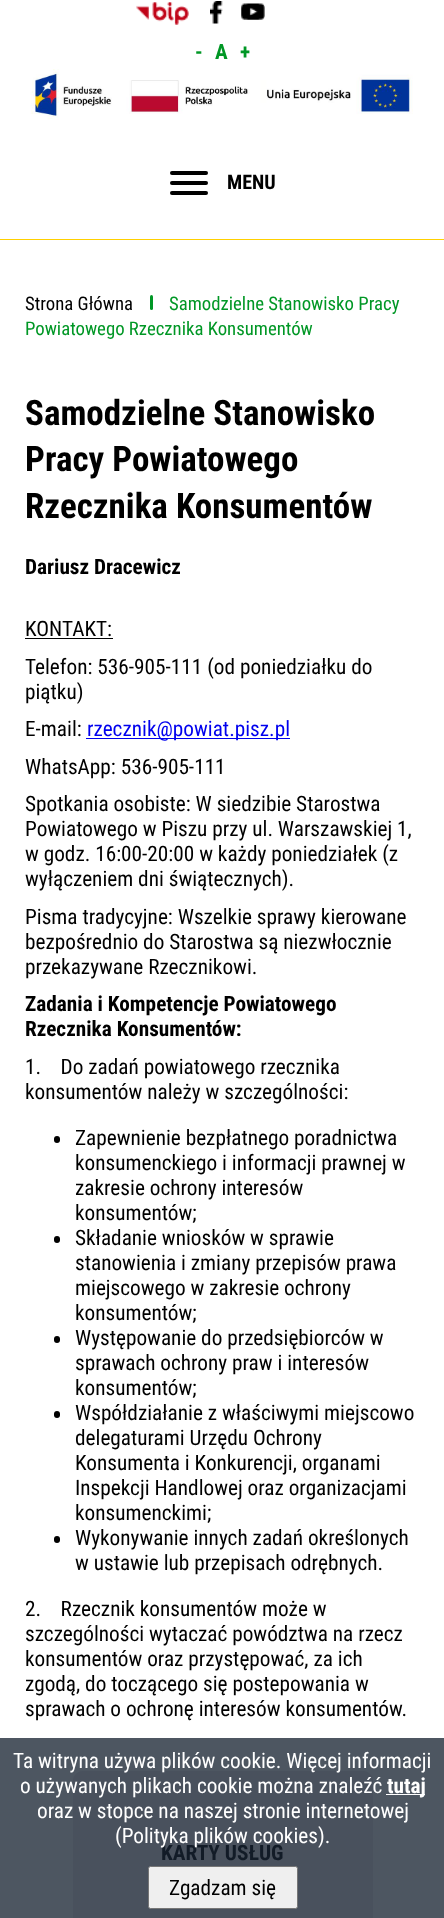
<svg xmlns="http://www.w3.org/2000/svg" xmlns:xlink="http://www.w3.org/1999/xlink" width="444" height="1918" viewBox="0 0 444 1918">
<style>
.cls-1{font:bold 21.25px Roboto Condensed;fill:#009725}
.cls-2{font:bold 20px Roboto Condensed;fill:#000000}
.cls-3{font:18.75px Roboto Condensed;fill:#000000}
.cls-4{font:18.75px Roboto Condensed;fill:#009725}
.cls-5{font:bold 35px Roboto Condensed;fill:#000000}
.cls-6{font:bold 21.25px Roboto Condensed;fill:#000000}
.cls-7{font:21.25px Roboto Condensed;fill:#000000}
.cls-8{font:21.25px Roboto Condensed;fill:#0000ee}
.cls-9{font:bold 21.25px Roboto Condensed;fill:#121b27}
.cls-10{font:21.25px Roboto Condensed;fill:#ffffff}
.cls-11{font:bold 21.25px Roboto Condensed;fill:#ffffff}
</style>
<rect width="100%" height="100%" fill="#ffffff"/>
<rect fill="#4d5661" x="0" y="1738" width="444" height="180"/>
<rect fill="#ffd000" x="0" y="239" width="444" height="1"/>
<image xlink:href="image0.png" x="136" y="2" width="53" height="23"/>
<image xlink:href="image1.png" x="210" y="1" width="13" height="23"/>
<image xlink:href="image2.png" x="241" y="3" width="24" height="17"/>
<image xlink:href="image3.png" x="30" y="69" width="383" height="51"/>
<rect fill="#000000" x="170" y="171" width="38" height="4" rx="2"/>
<rect fill="#000000" x="170" y="181" width="38" height="4" rx="2"/>
<rect fill="#000000" x="170" y="191" width="38" height="4" rx="2"/>
<rect fill="#009725" x="150" y="295" width="3" height="15" rx="1.5"/>
<rect fill="#000000" x="25" y="638" width="88" height="1"/>
<rect fill="#0000ee" x="86" y="738" width="204" height="1"/>
<rect fill="#000000" x="54" y="1136" width="6" height="7" rx="3"/>
<rect fill="#000000" x="54" y="1236" width="6" height="7" rx="3"/>
<rect fill="#000000" x="54" y="1336" width="6" height="7" rx="3"/>
<rect fill="#000000" x="54" y="1411" width="6" height="7" rx="3"/>
<rect fill="#000000" x="54" y="1536" width="6" height="7" rx="3"/>
<rect fill="#49515d" x="73" y="1771" width="300" height="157" rx="10"/>
<rect fill="#ffffff" x="386" y="1794" width="39" height="1"/>
<rect fill="#efefef" stroke="#767676" x="148.5" y="1866.5" width="149" height="42" rx="2"/>
<text class="cls-1" x="195" y="59">-</text>
<text class="cls-1" x="215" y="59">A</text>
<text class="cls-1" x="240" y="59">+</text>
<text class="cls-2" x="227" y="189">MENU</text>
<text class="cls-3" x="25" y="310">Strona Główna</text>
<text class="cls-4" x="169" y="310">Samodzielne Stanowisko Pracy</text>
<text class="cls-4" x="25" y="335">Powiatowego Rzecznika Konsumentów</text>
<text class="cls-5"><tspan x="25" y="425">Samodzielne Stanowisko</tspan><tspan x="25" y="471">Pracy Powiatowego</tspan><tspan x="25" y="518">Rzecznika Konsumentów</tspan></text>
<text class="cls-6" x="25" y="574">Dariusz Dracewicz</text>
<text class="cls-7"><tspan x="25" y="636">KONTAKT:</tspan><tspan x="25" y="674">Telefon: 536-905-111 (od poniedziałku do</tspan><tspan x="25" y="699">piątku)</tspan><tspan x="25" y="736">E-mail:</tspan></text>
<text class="cls-8" x="87" y="736">rzecznik@powiat.pisz.pl</text>
<text class="cls-7"><tspan x="25" y="774">WhatsApp: 536-905-111</tspan><tspan x="25" y="811">Spotkania osobiste: W siedzibie Starostwa</tspan><tspan x="25" y="836">Powiatowego w Piszu przy ul. Warszawskiej 1,</tspan><tspan x="25" y="861">w godz. 16:00-20:00 w każdy poniedziałek (z</tspan><tspan x="25" y="886">wyłączeniem dni świątecznych).</tspan><tspan x="25" y="924">Pisma tradycyjne: Wszelkie sprawy kierowane</tspan><tspan x="25" y="949">bezpośrednio do Starostwa są niezwłocznie</tspan><tspan x="25" y="974">przekazywane Rzecznikowi.</tspan></text>
<text class="cls-6"><tspan x="25" y="1011">Zadania i Kompetencje Powiatowego</tspan><tspan x="25" y="1036">Rzecznika Konsumentów:</tspan></text>
<text class="cls-7" xml:space="preserve"><tspan x="25" y="1074">1.    Do zadań powiatowego rzecznika</tspan><tspan x="25" y="1099">konsumentów należy w szczególności:</tspan></text>
<text class="cls-7"><tspan x="75" y="1145">Zapewnienie bezpłatnego poradnictwa</tspan><tspan x="75" y="1170">konsumenckiego i informacji prawnej w</tspan><tspan x="75" y="1195">zakresie ochrony interesów</tspan><tspan x="75" y="1220">konsumentów;</tspan><tspan x="75" y="1245">Składanie wniosków w sprawie</tspan><tspan x="75" y="1270">stanowienia i zmiany przepisów prawa</tspan><tspan x="75" y="1295">miejscowego w zakresie ochrony</tspan><tspan x="75" y="1320">konsumentów;</tspan><tspan x="75" y="1345">Występowanie do przedsiębiorców w</tspan><tspan x="75" y="1370">sprawach ochrony praw i interesów</tspan><tspan x="75" y="1395">konsumentów;</tspan><tspan x="75" y="1420">Współdziałanie z właściwymi miejscowo</tspan><tspan x="75" y="1445">delegaturami Urzędu Ochrony</tspan><tspan x="75" y="1470">Konsumenta i Konkurencji, organami</tspan><tspan x="75" y="1495">Inspekcji Handlowej oraz organizacjami</tspan><tspan x="75" y="1520">konsumenckimi;</tspan><tspan x="75" y="1545">Wykonywanie innych zadań określonych</tspan><tspan x="75" y="1570">w ustawie lub przepisach odrębnych.</tspan></text>
<text class="cls-7" xml:space="preserve"><tspan x="25" y="1616">2.    Rzecznik konsumentów może w</tspan><tspan x="25" y="1641">szczególności wytaczać powództwa na rzecz</tspan><tspan x="25" y="1666">konsumentów oraz przystępować, za ich</tspan><tspan x="25" y="1691">zgodą, do toczącego się postepowania w</tspan><tspan x="25" y="1716">sprawach o ochronę interesów konsumentów.</tspan></text>
<text class="cls-9" x="161" y="1860">KARTY USŁUG</text>
<text class="cls-10" x="13" y="1768">Ta witryna używa plików cookie. Więcej informacji</text>
<text class="cls-10" x="20" y="1793">o używanych plikach cookie można znaleźć</text>
<text class="cls-11" x="387" y="1793">tutaj</text>
<text class="cls-10" x="37" y="1818">oraz w stopce na naszej stronie internetowej</text>
<text class="cls-10" x="115" y="1843">(Polityka plików cookies).</text>
<text class="cls-7" x="169" y="1895">Zgadzam się</text>
</svg>
